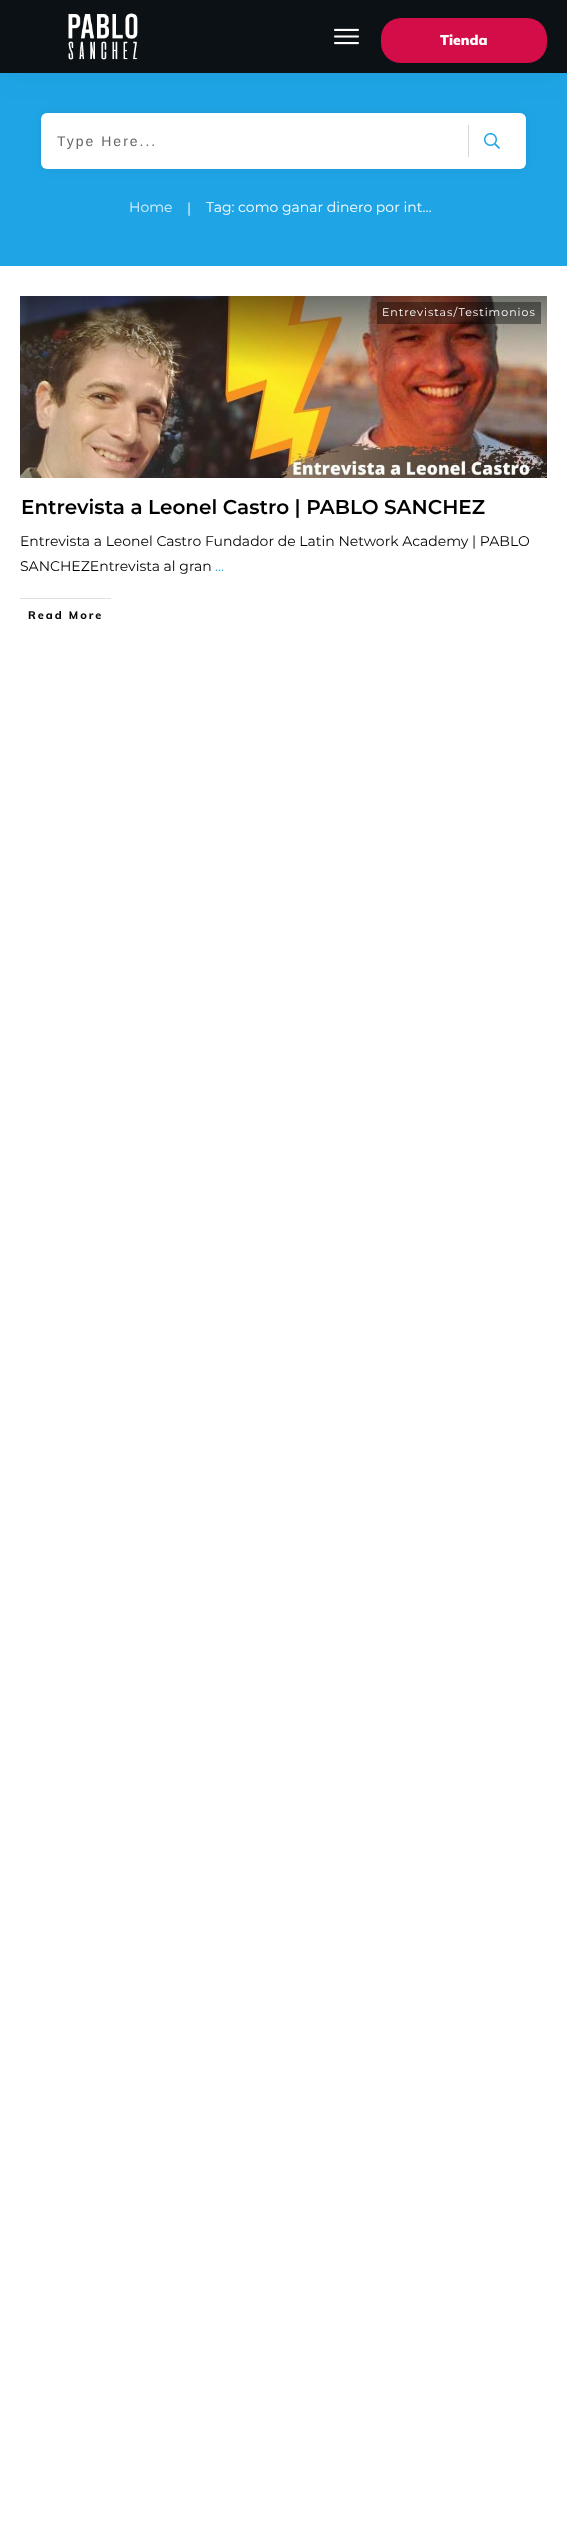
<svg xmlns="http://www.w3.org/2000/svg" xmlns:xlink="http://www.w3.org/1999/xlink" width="567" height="2523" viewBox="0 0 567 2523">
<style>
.cls-1{font:900 14px Muli;fill:#ffffff}
.cls-2{font:14px Liberation Sans;letter-spacing:2px;fill:#666666}
.cls-3{font:14px Montserrat;fill:#ddf2fb}
.cls-4{font:14px Montserrat;fill:#ffffff}
.cls-5{font:11px Montserrat;letter-spacing:1px;fill:#ffffff}
.cls-6{font:600 20px Montserrat;fill:#000000}
.cls-7{font:14px Montserrat;fill:#000000}
.cls-8{font:14px Montserrat;fill:#1fa5e6}
.cls-9{font:800 11px Muli;letter-spacing:2px;fill:#0a0a0a}
</style>
<rect width="100%" height="100%" fill="#ffffff"/>
<rect fill="#1fa5e6" x="0" y="73" width="567" height="193"/>
<rect fill="#000000" fill-opacity="0.08" filter="blur(5.5px)" x="41" y="113" width="485" height="56" rx="6"/>
<rect fill="#ffffff" x="41" y="113" width="485" height="56" rx="6"/>
<rect fill="#000000" fill-opacity="0.05" filter="blur(15px)" x="0" y="2" width="567" height="73"/>
<rect fill="#0c1115" x="0" y="0" width="567" height="73"/>
<image xlink:href="image0.png" x="68" y="13" width="70" height="47"/>
<image xlink:href="image1.png" x="334" y="28" width="25" height="17"/>
<rect fill="#d20d48" x="381" y="18" width="166" height="45" rx="20"/>
<rect fill="#d6d6d6" x="468" y="125" width="1" height="32"/>
<image xlink:href="image2.png" x="484" y="133" width="16" height="16"/>
<image xlink:href="image3.png" x="20" y="296" width="527" height="182"/>
<rect fill="#000000" fill-opacity="0.4" x="377" y="302" width="164" height="22"/>
<rect fill="#e0e0e0" x="20" y="598" width="91" height="1"/>
<text class="cls-1" x="440" y="45">Tienda</text>
<text class="cls-2" x="57" y="146">Type Here...</text>
<text class="cls-3" x="129" y="212">Home</text>
<text class="cls-4" x="187" y="213">|</text>
<text class="cls-4" x="206" y="212">Tag: como ganar dinero por int…</text>
<text class="cls-5" x="382" y="316">Entrevistas/Testimonios</text>
<text class="cls-6" x="21" y="514">Entrevista a Leonel Castro | PABLO SANCHEZ</text>
<text class="cls-7"><tspan x="20" y="546">Entrevista a Leonel Castro Fundador de Latin Network Academy | PABLO</tspan><tspan x="20" y="571">SANCHEZEntrevista al gran</tspan></text>
<text class="cls-8" x="215" y="571">...</text>
<text class="cls-9" x="28" y="619">Read More</text>
</svg>
